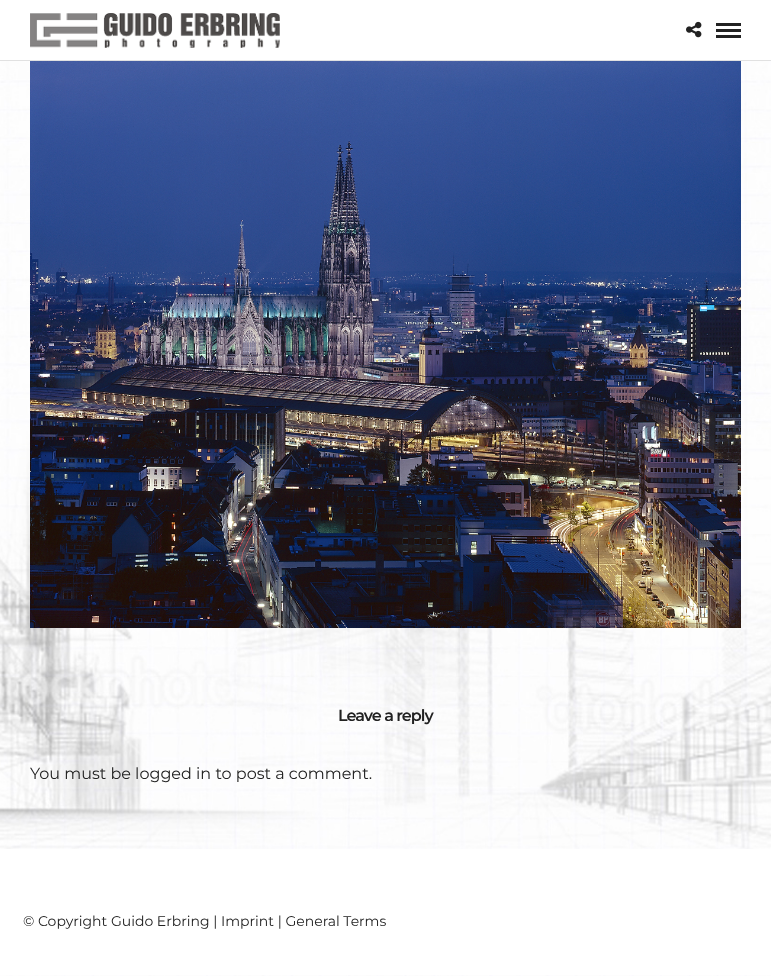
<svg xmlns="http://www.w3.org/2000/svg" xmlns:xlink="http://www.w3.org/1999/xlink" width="771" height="976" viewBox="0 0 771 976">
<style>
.cls-1{font:600 16px Montserrat;letter-spacing:-1px;fill:#222222}
.cls-2{font:16px Montserrat;fill:#222222}
.cls-3{font:14px Montserrat;fill:#222222}
</style>
<rect width="100%" height="100%" fill="#ffffff"/>
<image xlink:href="image0.png" x="0" y="61" width="771" height="915"/>
<rect fill="#e1e1e1" x="0" y="60" width="771" height="1"/>
<image xlink:href="image1.png" x="30" y="13" width="250" height="35"/>
<image xlink:href="image2.png" x="686" y="21" width="16" height="17"/>
<rect fill="#222222" x="716" y="23" width="25" height="3"/>
<rect fill="#222222" x="716" y="29" width="25" height="3"/>
<rect fill="#222222" x="716" y="35" width="25" height="3"/>
<image xlink:href="image3.png" x="30" y="61" width="711" height="567"/>
<rect fill="#ffffff" x="0" y="849" width="771" height="126"/>
<text class="cls-1" x="338" y="721">Leave a reply</text>
<text class="cls-2" x="30" y="779">You must be logged in to post a comment.</text>
<text class="cls-3" x="23" y="926">© Copyright Guido Erbring | Imprint | General Terms</text>
</svg>
